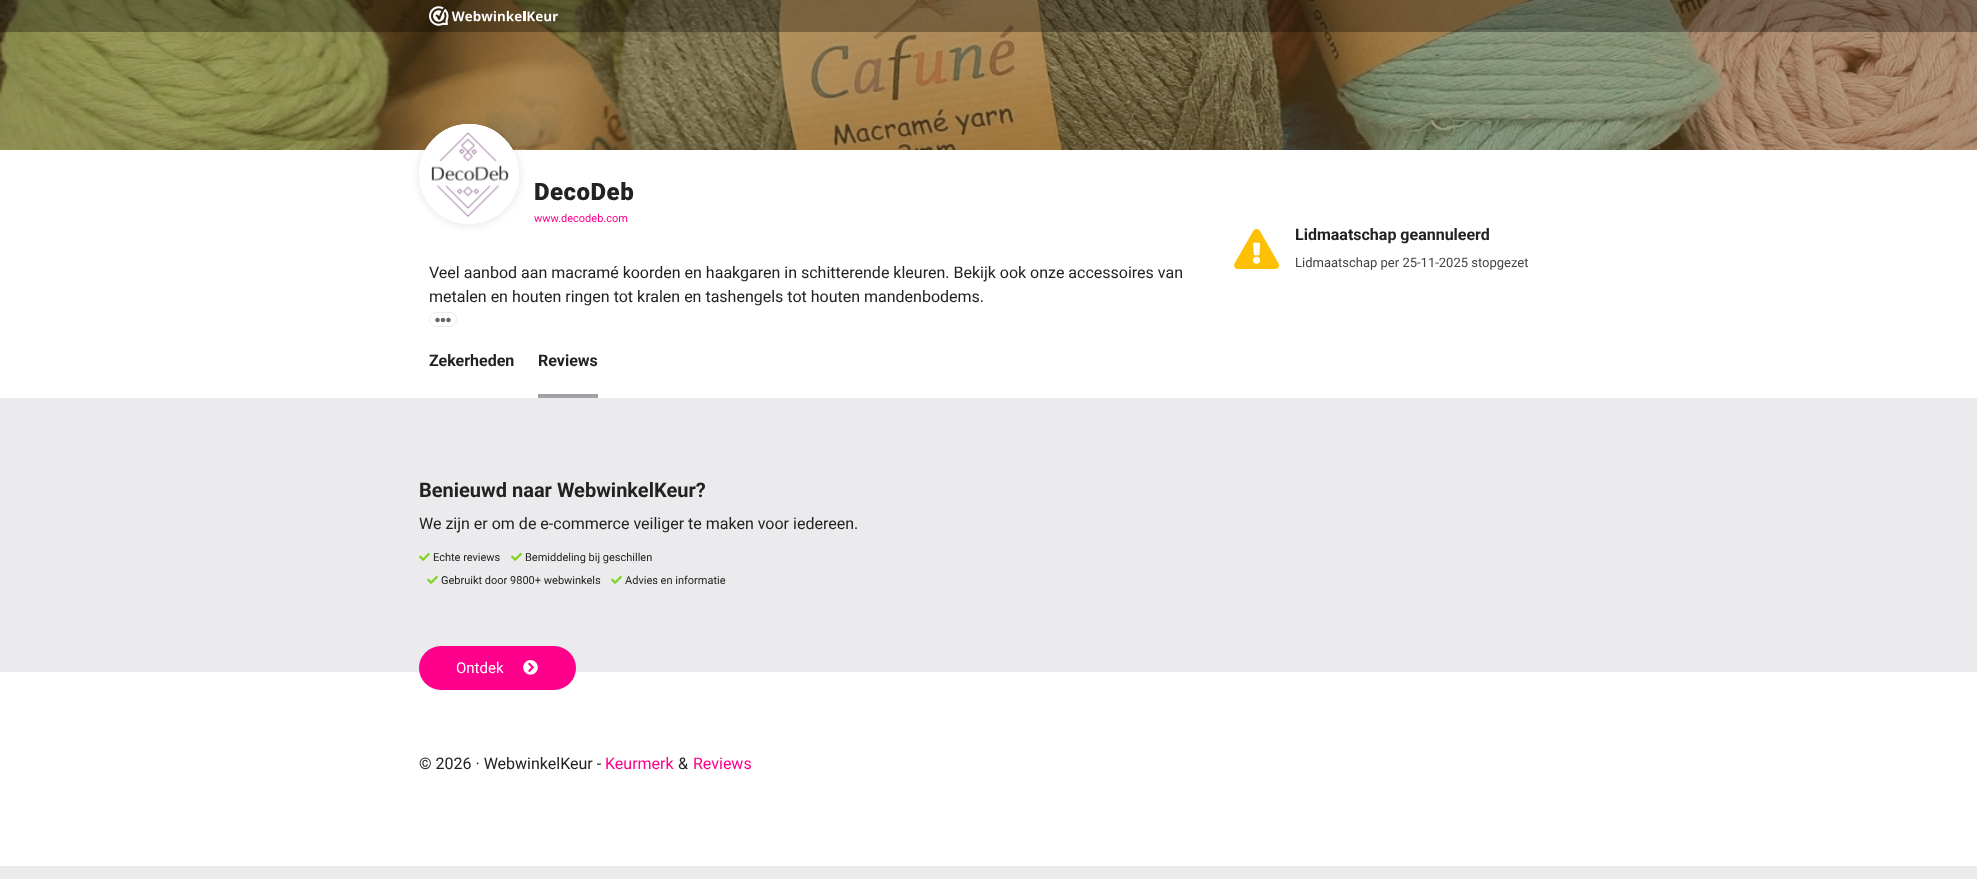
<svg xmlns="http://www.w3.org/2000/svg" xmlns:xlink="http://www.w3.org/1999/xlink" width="1977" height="879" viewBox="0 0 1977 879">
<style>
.cls-1{font:900 24px Roboto;letter-spacing:0.5px;fill:#222222}
.cls-2{font:11px Roboto;fill:#fe008c}
.cls-3{font:16px Roboto;fill:#222222}
.cls-4{font:bold 16px Roboto;fill:#222222}
.cls-5{font:13px Roboto;fill:#444444}
.cls-6{font:bold 20px Roboto;fill:#222222}
.cls-7{font:11px Roboto;fill:#222222}
.cls-8{font:15px Roboto;fill:#ffffff}
.cls-9{font:16px Roboto;fill:#fe008c}
</style>
<rect width="100%" height="100%" fill="#ebebed"/>
<image xlink:href="image0.png" x="0" y="0" width="1977" height="150"/>
<rect fill="#000000" fill-opacity="0.3" x="0" y="0" width="1977" height="32"/>
<image xlink:href="image1.png" x="429" y="6" width="129" height="20"/>
<rect fill="#ffffff" x="0" y="150" width="1977" height="248"/>
<rect fill="#000000" fill-opacity="0.07" filter="blur(3.5px)" x="417" y="123" width="104" height="104" rx="52"/>
<circle fill="#ffffff" cx="469" cy="174" r="50"/>
<image xlink:href="image2.png" x="425" y="124" width="88" height="94"/>
<circle fill="none" stroke="#ffffff" stroke-width="2" cx="469" cy="174" r="49"/>
<rect fill="none" stroke="#ebebed" x="429.5" y="312.5" width="27" height="14" rx="7"/>
<image xlink:href="image3.png" x="435" y="317" width="16" height="6"/>
<image xlink:href="image4.png" x="1234" y="229" width="46" height="40"/>
<rect fill="#a2a2a6" x="538" y="394" width="60" height="4"/>
<image xlink:href="image5.png" x="419" y="552" width="11" height="9"/>
<image xlink:href="image5.png" x="511" y="552" width="11" height="9"/>
<image xlink:href="image5.png" x="427" y="575" width="11" height="9"/>
<image xlink:href="image5.png" x="611" y="575" width="11" height="9"/>
<rect fill="#ffffff" x="0" y="672" width="1977" height="194"/>
<rect fill="#fe008c" x="419" y="646" width="157" height="44" rx="22"/>
<image xlink:href="image6.png" x="523" y="660" width="15" height="15"/>
<text class="cls-1" x="534" y="200">DecoDeb</text>
<text class="cls-2" x="534" y="222">www.decodeb.com</text>
<text class="cls-3"><tspan x="429" y="278">Veel aanbod aan macramé koorden en haakgaren in schitterende kleuren. Bekijk ook onze accessoires van</tspan><tspan x="429" y="302">metalen en houten ringen tot kralen en tashengels tot houten mandenbodems.</tspan></text>
<text class="cls-4" x="1295" y="240">Lidmaatschap geannuleerd</text>
<text class="cls-5" x="1295" y="267">Lidmaatschap per 25-11-2025 stopgezet</text>
<text class="cls-4" x="429" y="366">Zekerheden</text>
<text class="cls-4" x="538" y="366">Reviews</text>
<text class="cls-6" x="419" y="497">Benieuwd naar WebwinkelKeur?</text>
<text class="cls-3" x="419" y="529">We zijn er om de e-commerce veiliger te maken voor iedereen.</text>
<text class="cls-7" x="433" y="561">Echte reviews</text>
<text class="cls-7" x="525" y="561">Bemiddeling bij geschillen</text>
<text class="cls-7" x="441" y="584">Gebruikt door 9800+ webwinkels</text>
<text class="cls-7" x="625" y="584">Advies en informatie</text>
<text class="cls-8" x="456" y="673">Ontdek</text>
<text class="cls-3" x="419" y="769">© 2026 · WebwinkelKeur -</text>
<text class="cls-9" x="605" y="769">Keurmerk</text>
<text class="cls-3" x="678" y="769">&amp;</text>
<text class="cls-9" x="693" y="769">Reviews</text>
</svg>
